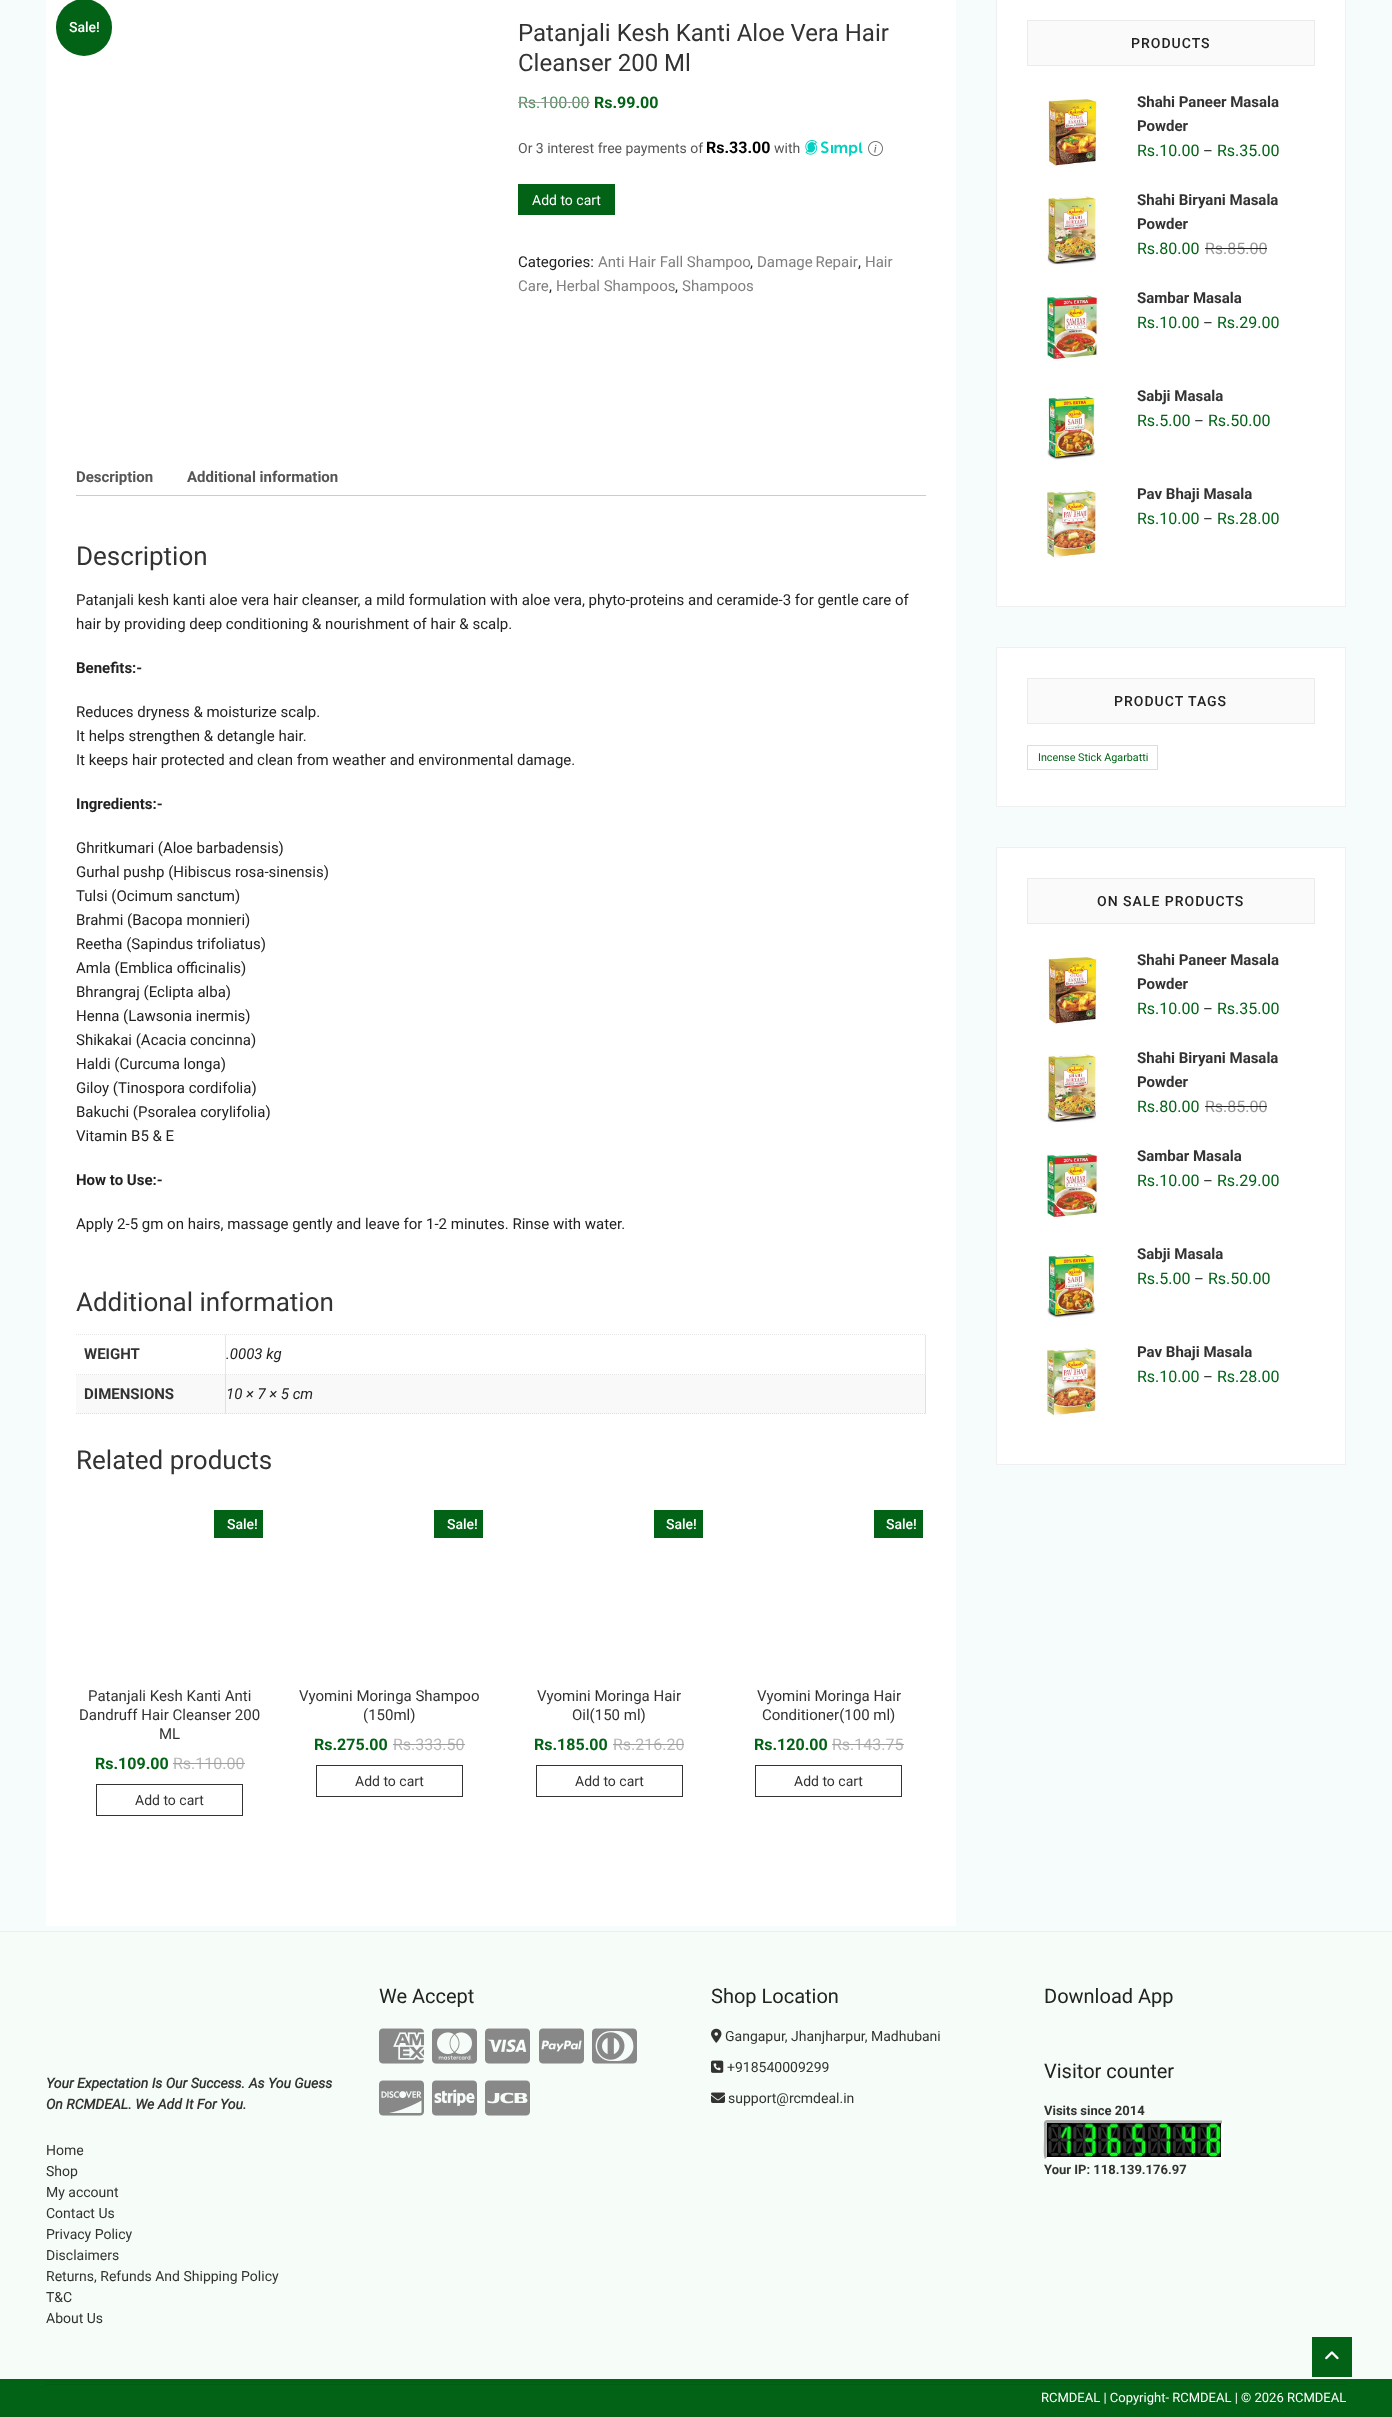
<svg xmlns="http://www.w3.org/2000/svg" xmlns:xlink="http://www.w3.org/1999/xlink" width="1392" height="2417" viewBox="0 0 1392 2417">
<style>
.cls-1{font:500 14px Roboto;fill:#ffffff}
.cls-2{font:24px Roboto;fill:#333333}
.cls-3{font:16px Roboto;fill:#4e925c}
.cls-4{font:bold 16px Roboto;fill:#026316}
.cls-5{font:14px Roboto;fill:#555555}
.cls-6{font:bold 16px Roboto;fill:#000000}
.cls-7{font:14px Roboto;fill:#ffffff}
.cls-8{font:15px Roboto;fill:#222222}
.cls-9{font:15px Roboto;fill:#808080}
.cls-10{font:bold 15px Roboto;fill:#555555}
.cls-11{font:26px Roboto;fill:#333333}
.cls-12{font:bold 15px Roboto;fill:#222222}
.cls-13{font:bold 15px Roboto;fill:#333333}
.cls-14{font:italic 15px Roboto;fill:#222222}
.cls-15{font:15px Roboto;fill:#333333}
.cls-16{font:16px Roboto;fill:#b8b8b8}
.cls-17{font:14px Roboto;fill:#333333}
.cls-18{font:500 14px Roboto;letter-spacing:1px;fill:#222222}
.cls-19{font:16px Roboto;fill:#026316}
.cls-20{font:16px Roboto;fill:#999999}
.cls-21{font:10.75px Roboto;fill:#026316}
.cls-22{font:italic bold 14px Roboto;fill:#333333}
.cls-23{font:20px Roboto;fill:#222222}
.cls-24{font:bold 13px Roboto;fill:#333333}
.cls-25{font:13px Roboto;fill:#ffffff}
</style>
<rect width="100%" height="100%" fill="#f6fcfb"/>
<rect fill="#ffffff" x="46" y="0" width="910" height="1926"/>
<rect fill="#026316" x="56" y="-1" width="56" height="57" rx="28"/>
<image xlink:href="image0.png" x="805" y="140" width="58" height="17"/>
<image xlink:href="image1.png" x="868" y="141" width="15" height="15"/>
<rect fill="#026316" x="518" y="184" width="97" height="31"/>
<rect fill="#cfc8d8" x="76" y="495" width="850" height="1"/>
<path fill="none" stroke="#e6e6e6" stroke-dasharray="1 1" d="M76 1334.5H926"/>
<path fill="#e6e6e6" d="M226 1335V1375L225 1374V1335Z"/>
<path fill="none" stroke="#e6e6e6" stroke-dasharray="1 1" d="M76 1374.5H226"/>
<path fill="#e6e6e6" d="M926 1335V1375L925 1374V1335Z"/>
<path fill="none" stroke="#e6e6e6" stroke-dasharray="1 1" d="M226 1374.5H926"/>
<rect fill="#f9f9f9" x="76" y="1375" width="850" height="39"/>
<path fill="#e0e0e0" d="M226 1375V1414L225 1413V1375Z"/>
<path fill="none" stroke="#e0e0e0" stroke-dasharray="1 1" d="M76 1413.5H226"/>
<path fill="#e0e0e0" d="M926 1375V1414L925 1413V1375Z"/>
<path fill="none" stroke="#e0e0e0" stroke-dasharray="1 1" d="M226 1413.5H926"/>
<rect fill="#026316" x="214" y="1510" width="49" height="28"/>
<rect fill="none" stroke="#333333" x="96.5" y="1784.5" width="146" height="31"/>
<rect fill="#026316" x="434" y="1510" width="49" height="28"/>
<rect fill="none" stroke="#333333" x="316.5" y="1765.5" width="146" height="31"/>
<rect fill="#026316" x="654" y="1510" width="49" height="28"/>
<rect fill="none" stroke="#333333" x="536.5" y="1765.5" width="146" height="31"/>
<rect fill="#026316" x="874" y="1510" width="49" height="28"/>
<rect fill="none" stroke="#333333" x="755.5" y="1765.5" width="146" height="31"/>
<rect fill="#ffffff" stroke="#f0f0f0" x="996.5" y="-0.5" width="349" height="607"/>
<rect fill="#fafafa" stroke="#ebebeb" x="1027.5" y="20.5" width="287" height="45"/>
<image xlink:href="image2.png" x="1048" y="98" width="49" height="69"/>
<image xlink:href="image3.png" x="1047" y="195" width="50" height="70"/>
<image xlink:href="image4.png" x="1046" y="295" width="52" height="66"/>
<image xlink:href="image5.png" x="1047" y="396" width="49" height="65"/>
<image xlink:href="image6.png" x="1046" y="489" width="52" height="70"/>
<rect fill="#ffffff" stroke="#f0f0f0" x="996.5" y="647.5" width="349" height="159"/>
<rect fill="#fafafa" stroke="#ebebeb" x="1027.5" y="678.5" width="287" height="45"/>
<rect fill="none" stroke="#dddddd" x="1027.5" y="745.5" width="130" height="24"/>
<rect fill="#ffffff" stroke="#f0f0f0" x="996.5" y="847.5" width="349" height="617"/>
<rect fill="#fafafa" stroke="#ebebeb" x="1027.5" y="878.5" width="287" height="45"/>
<image xlink:href="image2.png" x="1048" y="956" width="49" height="69"/>
<image xlink:href="image7.png" x="1047" y="1053" width="50" height="70"/>
<image xlink:href="image8.png" x="1046" y="1153" width="52" height="66"/>
<image xlink:href="image5.png" x="1047" y="1254" width="49" height="65"/>
<image xlink:href="image9.png" x="1046" y="1347" width="52" height="70"/>
<rect fill="#f6fcf8" x="0" y="1932" width="1392" height="447"/>
<rect fill="#eaefec" x="0" y="1931" width="1392" height="1"/>
<image xlink:href="image10.png" x="379" y="2028" width="45" height="36"/>
<image xlink:href="image11.png" x="432" y="2028" width="45" height="36"/>
<image xlink:href="image12.png" x="485" y="2028" width="45" height="36"/>
<image xlink:href="image13.png" x="539" y="2028" width="45" height="36"/>
<image xlink:href="image14.png" x="592" y="2028" width="45" height="36"/>
<image xlink:href="image15.png" x="379" y="2080" width="45" height="36"/>
<image xlink:href="image16.png" x="432" y="2080" width="45" height="36"/>
<image xlink:href="image17.png" x="485" y="2080" width="45" height="36"/>
<image xlink:href="image18.png" x="711" y="2028" width="11" height="15"/>
<image xlink:href="image19.png" x="711" y="2060" width="13" height="13"/>
<image xlink:href="image20.png" x="711" y="2092" width="14" height="11"/>
<path fill="none" stroke="#ffffff" stroke-width="3" d="M1222 2122C1223.5 2123.5 1222.5 2137.5 1222.5 2140V2151.5C1222.5 2154 1223.5 2158.5 1221 2158.5L1046 2158"/>
<path fill="none" stroke="#aaaaaa" stroke-width="3" d="M1046 2158C1044.5 2156.5 1045.5 2142.5 1045.5 2140V2128.5C1045.5 2126 1044.5 2121.5 1047 2121.5L1222 2122"/>
<image xlink:href="image21.png" x="1047" y="2123" width="174" height="34"/>
<rect fill="#026316" x="1312" y="2337" width="40" height="40"/>
<image xlink:href="image22.png" x="1325" y="2351" width="14" height="9"/>
<rect fill="#026316" x="0" y="2379" width="1392" height="38"/>
<rect fill="#025c14" x="46" y="2384" width="1300" height="1"/>
<rect fill="#025c14" x="46" y="2381" width="1300" height="1"/>
<text class="cls-1" x="69" y="32">Sale!</text>
<text class="cls-2"><tspan x="518" y="41">Patanjali Kesh Kanti Aloe Vera Hair</tspan><tspan x="518" y="71">Cleanser 200 Ml</tspan></text>
<text class="cls-3" x="518" y="108">Rs.100.00</text>
<rect fill="#9e9e9e" x="518" y="102" width="72" height="1"/>
<text class="cls-4" x="594" y="108">Rs.99.00</text>
<text class="cls-5" x="518" y="153">Or 3 interest free payments of</text>
<text class="cls-6" x="706" y="153">Rs.33.00</text>
<text class="cls-5" x="774" y="153">with</text>
<text class="cls-7" x="532" y="205">Add to cart</text>
<text class="cls-8" x="518" y="267">Categories:</text>
<text class="cls-9" x="598" y="267">Anti Hair Fall Shampoo</text>
<text class="cls-8" x="750" y="267">,</text>
<text class="cls-9" x="757" y="267" word-spacing="-1">Damage Repair</text>
<text class="cls-8" x="858" y="267">,</text>
<text class="cls-9" x="865" y="267">Hair</text>
<text class="cls-9" x="518" y="291">Care</text>
<text class="cls-8" x="549" y="291">,</text>
<text class="cls-9" x="556" y="291">Herbal Shampoos</text>
<text class="cls-8" x="675" y="291">,</text>
<text class="cls-9" x="682" y="291">Shampoos</text>
<text class="cls-10" x="76" y="482">Description</text>
<text class="cls-10" x="187" y="482">Additional information</text>
<text class="cls-11" x="76" y="565">Description</text>
<text class="cls-8"><tspan x="76" y="605">Patanjali kesh kanti aloe vera hair cleanser, a mild formulation with aloe vera, phyto-proteins and ceramide-3 for gentle care of</tspan><tspan x="76" y="629">hair by providing deep conditioning &amp; nourishment of hair &amp; scalp.</tspan></text>
<text class="cls-12" x="76" y="673">Benefits:-</text>
<text class="cls-8"><tspan x="76" y="717">Reduces dryness &amp; moisturize scalp.</tspan><tspan x="76" y="741">It helps strengthen &amp; detangle hair.</tspan><tspan x="76" y="765">It keeps hair protected and clean from weather and environmental damage.</tspan></text>
<text class="cls-12" x="76" y="809">Ingredients:-</text>
<text class="cls-8"><tspan x="76" y="853">Ghritkumari (Aloe barbadensis)</tspan><tspan x="76" y="877">Gurhal pushp (Hibiscus rosa-sinensis)</tspan><tspan x="76" y="901">Tulsi (Ocimum sanctum)</tspan><tspan x="76" y="925">Brahmi (Bacopa monnieri)</tspan><tspan x="76" y="949">Reetha (Sapindus trifoliatus)</tspan><tspan x="76" y="973">Amla (Emblica officinalis)</tspan><tspan x="76" y="997">Bhrangraj (Eclipta alba)</tspan><tspan x="76" y="1021">Henna (Lawsonia inermis)</tspan><tspan x="76" y="1045">Shikakai (Acacia concinna)</tspan><tspan x="76" y="1069">Haldi (Curcuma longa)</tspan><tspan x="76" y="1093">Giloy (Tinospora cordifolia)</tspan><tspan x="76" y="1117">Bakuchi (Psoralea corylifolia)</tspan><tspan x="76" y="1141">Vitamin B5 &amp; E</tspan></text>
<text class="cls-12" x="76" y="1185">How to Use:-</text>
<text class="cls-8" x="76" y="1229">Apply 2-5 gm on hairs, massage gently and leave for 1-2 minutes. Rinse with water.</text>
<text class="cls-11" x="76" y="1311">Additional information</text>
<text class="cls-13" x="84" y="1359">WEIGHT</text>
<text class="cls-14" x="226" y="1359">.0003 kg</text>
<text class="cls-13" x="84" y="1399">DIMENSIONS</text>
<text class="cls-14" x="226" y="1399">10 × 7 × 5 cm</text>
<text class="cls-11" x="76" y="1469">Related products</text>
<text class="cls-1" x="227" y="1529">Sale!</text>
<text class="cls-15" x="88" y="1701">Patanjali Kesh Kanti Anti</text>
<text class="cls-15" x="79" y="1720">Dandruff Hair Cleanser 200</text>
<text class="cls-15" x="159" y="1739">ML</text>
<text class="cls-4" x="95" y="1769">Rs.109.00</text>
<text class="cls-16" x="173" y="1769">Rs.110.00</text>
<rect fill="#9e9e9e" x="173" y="1763" width="72" height="1"/>
<text class="cls-17" x="135" y="1805">Add to cart</text>
<text class="cls-1" x="447" y="1529">Sale!</text>
<text class="cls-15" x="299" y="1701">Vyomini Moringa Shampoo</text>
<text class="cls-15" x="363" y="1720">(150ml)</text>
<text class="cls-4" x="314" y="1750">Rs.275.00</text>
<text class="cls-16" x="393" y="1750">Rs.333.50</text>
<rect fill="#9e9e9e" x="393" y="1744" width="72" height="1"/>
<text class="cls-17" x="355" y="1786">Add to cart</text>
<text class="cls-1" x="666" y="1529">Sale!</text>
<text class="cls-15" x="537" y="1701">Vyomini Moringa Hair</text>
<text class="cls-15" x="572" y="1720">Oil(150 ml)</text>
<text class="cls-4" x="534" y="1750">Rs.185.00</text>
<text class="cls-16" x="613" y="1750">Rs.216.20</text>
<rect fill="#9e9e9e" x="613" y="1744" width="71" height="1"/>
<text class="cls-17" x="575" y="1786">Add to cart</text>
<text class="cls-1" x="886" y="1529">Sale!</text>
<text class="cls-15" x="757" y="1701">Vyomini Moringa Hair</text>
<text class="cls-15" x="762" y="1720">Conditioner(100 ml)</text>
<text class="cls-4" x="754" y="1750">Rs.120.00</text>
<text class="cls-16" x="832" y="1750">Rs.143.75</text>
<rect fill="#9e9e9e" x="832" y="1744" width="72" height="1"/>
<text class="cls-17" x="794" y="1786">Add to cart</text>
<text class="cls-18" x="1131" y="48">PRODUCTS</text>
<text class="cls-13"><tspan x="1137" y="107">Shahi Paneer Masala</tspan><tspan x="1137" y="131">Powder</tspan></text>
<text class="cls-19" x="1137" y="156">Rs.10.00</text>
<text class="cls-8" x="1203" y="156">–</text>
<text class="cls-19" x="1217" y="156">Rs.35.00</text>
<text class="cls-13"><tspan x="1137" y="205">Shahi Biryani Masala</tspan><tspan x="1137" y="229">Powder</tspan></text>
<text class="cls-19" x="1137" y="254">Rs.80.00</text>
<text class="cls-20" x="1205" y="254">Rs.85.00</text>
<rect fill="#222222" x="1205" y="248" width="62" height="1"/>
<text class="cls-13" x="1137" y="303">Sambar Masala</text>
<text class="cls-19" x="1137" y="328">Rs.10.00</text>
<text class="cls-8" x="1203" y="328">–</text>
<text class="cls-19" x="1217" y="328">Rs.29.00</text>
<text class="cls-13" x="1137" y="401">Sabji Masala</text>
<text class="cls-19" x="1137" y="426">Rs.5.00</text>
<text class="cls-8" x="1194" y="426">–</text>
<text class="cls-19" x="1208" y="426">Rs.50.00</text>
<text class="cls-13" x="1137" y="499">Pav Bhaji Masala</text>
<text class="cls-19" x="1137" y="524">Rs.10.00</text>
<text class="cls-8" x="1203" y="524">–</text>
<text class="cls-19" x="1217" y="524">Rs.28.00</text>
<text class="cls-18" x="1114" y="706">PRODUCT TAGS</text>
<text class="cls-21" x="1038" y="761">Incense Stick Agarbatti</text>
<text class="cls-18" x="1097" y="906">ON SALE PRODUCTS</text>
<text class="cls-13"><tspan x="1137" y="965">Shahi Paneer Masala</tspan><tspan x="1137" y="989">Powder</tspan></text>
<text class="cls-19" x="1137" y="1014">Rs.10.00</text>
<text class="cls-8" x="1203" y="1014">–</text>
<text class="cls-19" x="1217" y="1014">Rs.35.00</text>
<text class="cls-13"><tspan x="1137" y="1063">Shahi Biryani Masala</tspan><tspan x="1137" y="1087">Powder</tspan></text>
<text class="cls-19" x="1137" y="1112">Rs.80.00</text>
<text class="cls-20" x="1205" y="1112">Rs.85.00</text>
<rect fill="#222222" x="1205" y="1106" width="62" height="1"/>
<text class="cls-13" x="1137" y="1161">Sambar Masala</text>
<text class="cls-19" x="1137" y="1186">Rs.10.00</text>
<text class="cls-8" x="1203" y="1186">–</text>
<text class="cls-19" x="1217" y="1186">Rs.29.00</text>
<text class="cls-13" x="1137" y="1259">Sabji Masala</text>
<text class="cls-19" x="1137" y="1284">Rs.5.00</text>
<text class="cls-8" x="1194" y="1284">–</text>
<text class="cls-19" x="1208" y="1284">Rs.50.00</text>
<text class="cls-13" x="1137" y="1357">Pav Bhaji Masala</text>
<text class="cls-19" x="1137" y="1382">Rs.10.00</text>
<text class="cls-8" x="1203" y="1382">–</text>
<text class="cls-19" x="1217" y="1382">Rs.28.00</text>
<text class="cls-22"><tspan x="46" y="2088">Your Expectation Is Our Success. As You Guess</tspan><tspan x="46" y="2109">On RCMDEAL. We Add It For You.</tspan></text>
<text class="cls-17"><tspan x="46" y="2155">Home</tspan><tspan x="46" y="2176">Shop</tspan><tspan x="46" y="2197">My account</tspan><tspan x="46" y="2218">Contact Us</tspan><tspan x="46" y="2239">Privacy Policy</tspan><tspan x="46" y="2260">Disclaimers</tspan><tspan x="46" y="2281">Returns, Refunds And Shipping Policy</tspan><tspan x="46" y="2302">T&amp;C</tspan><tspan x="46" y="2323">About Us</tspan></text>
<text class="cls-23" x="379" y="2003">We Accept</text>
<text class="cls-23" x="711" y="2003">Shop Location</text>
<text class="cls-17" x="725" y="2041">Gangapur, Jhanjharpur, Madhubani</text>
<text class="cls-17" x="727" y="2072">+918540009299</text>
<text class="cls-17" x="728" y="2103">support@rcmdeal.in</text>
<text class="cls-23" x="1044" y="2003">Download App</text>
<text class="cls-23" x="1044" y="2078">Visitor counter</text>
<text class="cls-24" x="1044" y="2115">Visits since 2014</text>
<text class="cls-24" x="1044" y="2174">Your IP: 118.139.176.97</text>
<text class="cls-25" x="1041" y="2402">RCMDEAL | Copyright- RCMDEAL | © 2026 RCMDEAL</text>
</svg>
